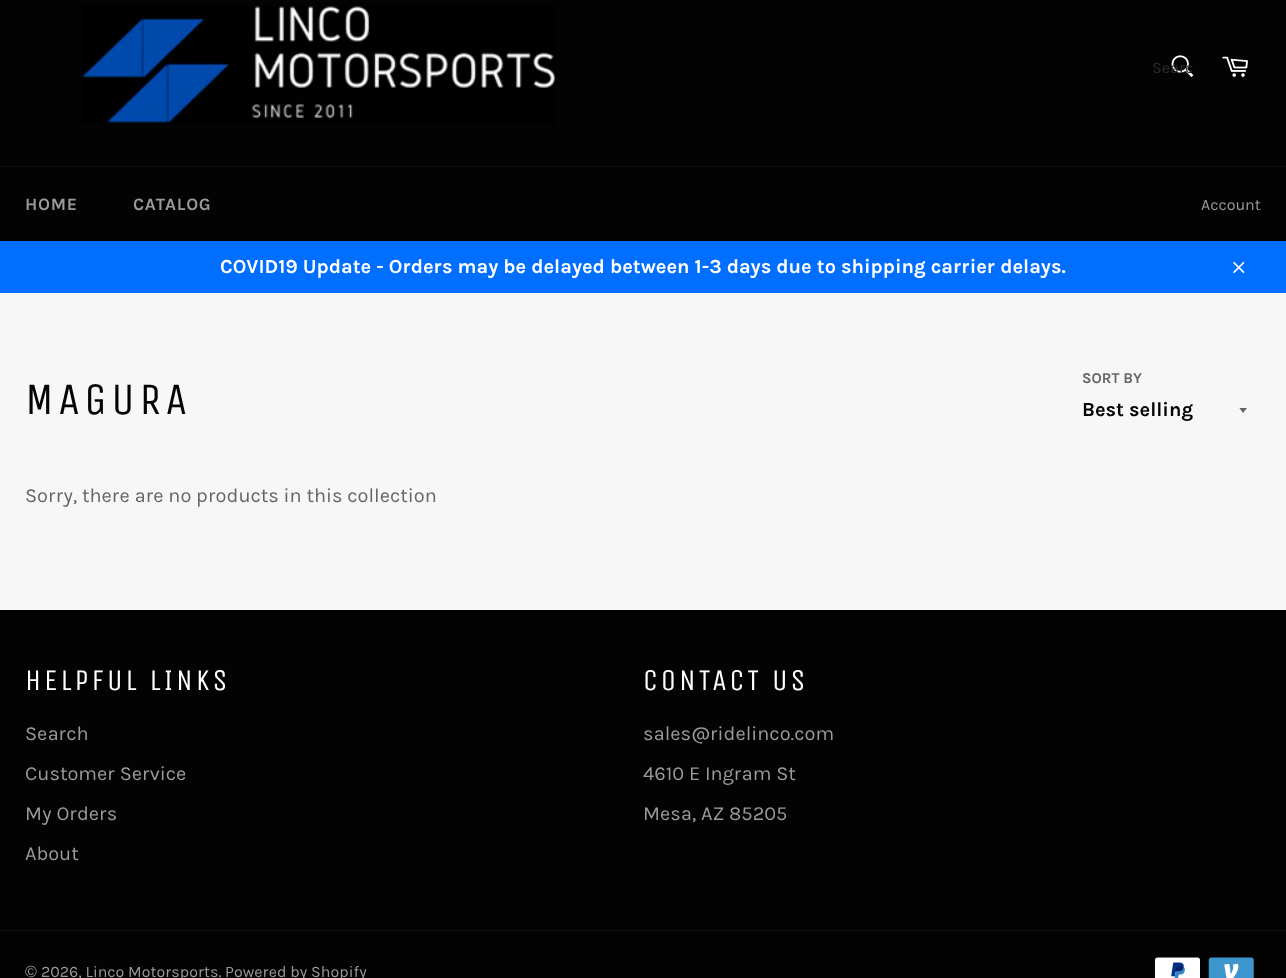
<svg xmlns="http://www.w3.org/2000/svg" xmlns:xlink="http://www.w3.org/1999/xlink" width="1286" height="978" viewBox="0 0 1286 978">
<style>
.cls-1{font:16px Karla;fill:#2b2b2b}
.cls-2{font:bold 17.5px Karla;letter-spacing:0.75px;fill:#9a9a9a}
.cls-3{font:16px Karla;fill:#9a9a9a}
.cls-4{font:bold 20px Karla;fill:#ffffff}
.cls-5{font:45px Unica One;letter-spacing:4.5px;fill:#030303}
.cls-6{font:bold 15px Karla;fill:#666666}
.cls-7{font:bold 20px Karla;fill:#030303}
.cls-8{font:20px Karla;fill:#666666}
.cls-9{font:30px Unica One;letter-spacing:3px;fill:#ffffff}
.cls-10{font:20px Karla;fill:#9a9a9a}
.cls-11{font:16px Liberation Sans;fill:#9a9a9a}
</style>
<defs>
<clipPath id="clip1"><rect x="1239" y="408" width="10" height="6"/></clipPath>
<clipPath id="clip2"><rect x="1153" y="59" width="40" height="19"/></clipPath>
</defs>
<rect width="100%" height="100%" fill="#f7f7f7"/>
<rect fill="#030303" x="0" y="0" width="1286" height="166"/>
<image xlink:href="image0.png" x="82" y="6" width="474" height="118"/>
<image xlink:href="image1.png" x="1171" y="55" width="23" height="22"/>
<image xlink:href="image2.png" x="1222" y="56" width="26" height="21"/>
<rect fill="#030303" x="0" y="167" width="1286" height="74"/>
<rect fill="#101010" x="0" y="166" width="1286" height="1"/>
<rect fill="#006eff" x="0" y="241" width="1286" height="52"/>
<image xlink:href="image3.png" x="1233" y="261" width="12" height="13"/>
<g clip-path="url(#clip1)">
<path fill="#666666" d="M1239 407.5L1243 413L1247.5 407.5Z"/>
</g>
<rect fill="#030303" x="0" y="610" width="1286" height="368"/>
<rect fill="#101010" x="0" y="930" width="1286" height="1"/>
<image xlink:href="image4.png" x="1155" y="957" width="45" height="21"/>
<image xlink:href="image5.png" x="1208" y="957" width="46" height="21"/>
<g clip-path="url(#clip2)">
<text class="cls-1" x="1152" y="73">Searc</text>
</g>
<text class="cls-2" x="25" y="210">HOME</text>
<text class="cls-2" x="133" y="210">CATALOG</text>
<text class="cls-3" x="1201" y="210">Account</text>
<text class="cls-4" x="220" y="273">COVID19 Update - Orders may be delayed between 1-3 days due to shipping carrier delays.</text>
<text class="cls-5" x="25" y="414">MAGURA</text>
<text class="cls-6" x="1082" y="383">SORT BY</text>
<text class="cls-7" x="1082" y="416">Best selling</text>
<text class="cls-8" x="25" y="502">Sorry, there are no products in this collection</text>
<text class="cls-9" x="25" y="690">HELPFUL LINKS</text>
<text class="cls-10" x="25" y="740">Search</text>
<text class="cls-10" x="25" y="780">Customer Service</text>
<text class="cls-10" x="25" y="820">My Orders</text>
<text class="cls-10" x="25" y="860">About</text>
<text class="cls-9" x="643" y="690">CONTACT US</text>
<text class="cls-10" x="643" y="740">sales@ridelinco.com</text>
<text class="cls-10" x="643" y="780">4610 E Ingram St</text>
<text class="cls-10" x="643" y="820">Mesa, AZ 85205</text>
<text class="cls-11" x="25" y="977">©</text>
<text class="cls-3" x="41" y="977">2026, Linco Motorsports. Powered by Shopify</text>
</svg>
